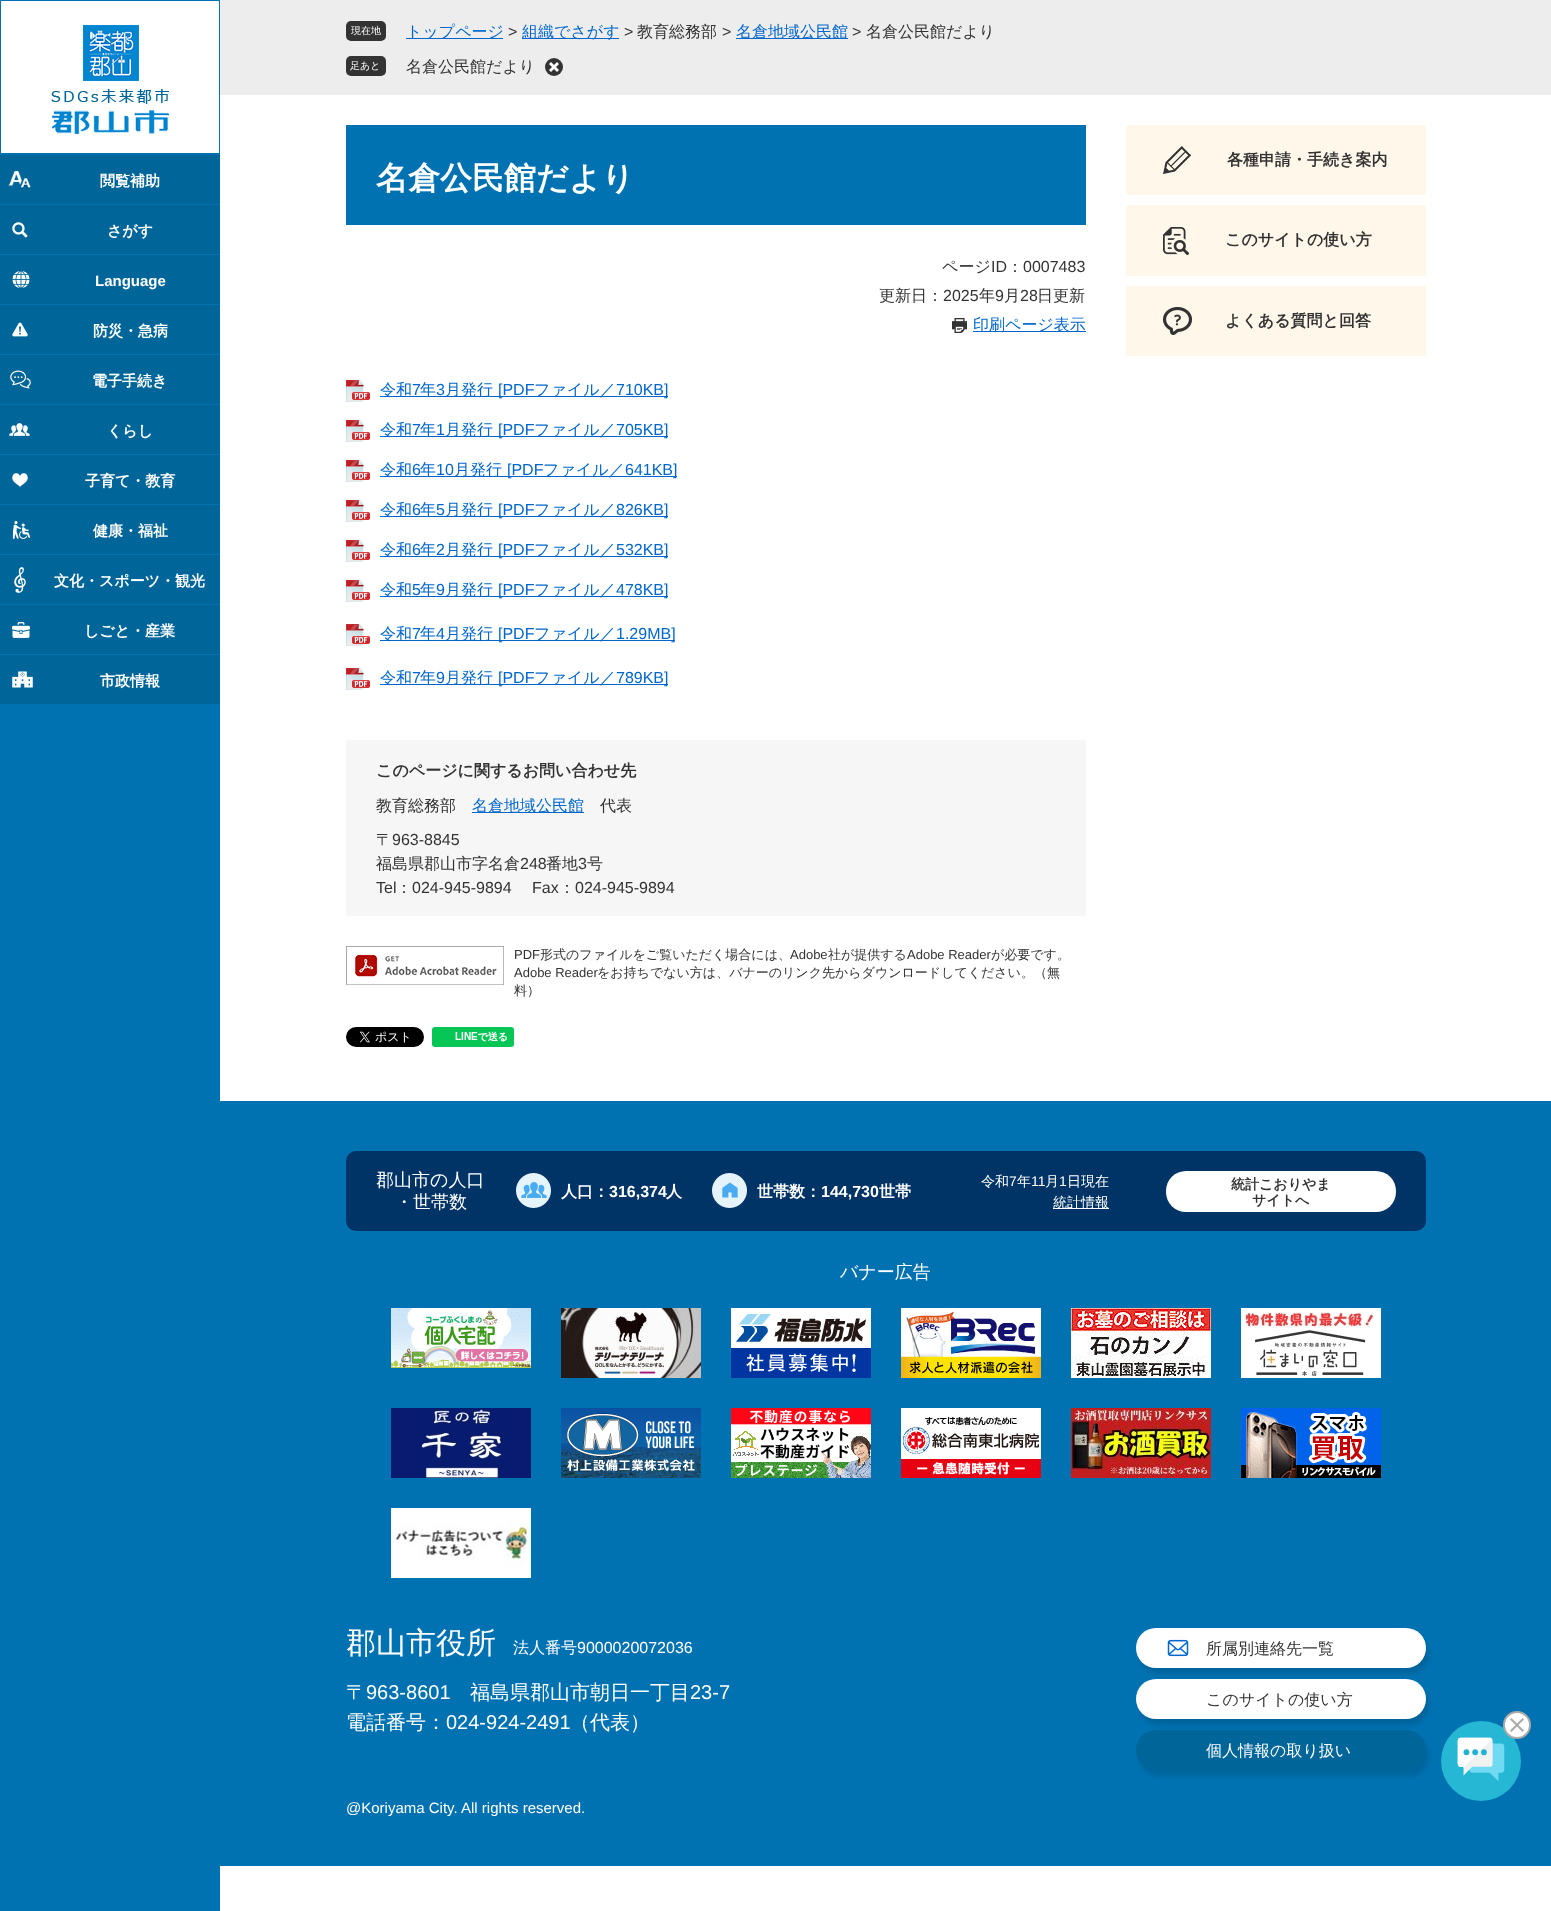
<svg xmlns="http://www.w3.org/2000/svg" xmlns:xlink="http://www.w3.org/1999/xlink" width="1551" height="1911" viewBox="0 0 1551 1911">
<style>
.cls-1{font:500 10px WenQuanYi Zen Hei;fill:#ffffff}
.cls-2{font:500 16px WenQuanYi Zen Hei;fill:#0066cc}
.cls-3{font:16px Liberation Sans;fill:#333333}
.cls-4{font:500 16px WenQuanYi Zen Hei;fill:#333333}
.cls-5{font:bold 15px WenQuanYi Zen Hei;fill:#ffffff}
.cls-6{font:bold 15px Liberation Sans;fill:#ffffff}
.cls-7{font:bold 32px WenQuanYi Zen Hei;fill:#ffffff}
.cls-8{font:16px Liberation Sans;fill:#0066cc}
.cls-9{font:bold 16px WenQuanYi Zen Hei;fill:#333333}
.cls-10{font:13px Liberation Sans;fill:#333333}
.cls-11{font:500 13px WenQuanYi Zen Hei;fill:#333333}
.cls-12{font:500 18px WenQuanYi Zen Hei;fill:#ffffff}
.cls-13{font:bold 16px WenQuanYi Zen Hei;fill:#ffffff}
.cls-14{font:bold 16px Liberation Sans;fill:#ffffff}
.cls-15{font:500 14px WenQuanYi Zen Hei;fill:#ffffff}
.cls-16{font:14px Liberation Sans;fill:#ffffff}
.cls-17{font:bold 14px WenQuanYi Zen Hei;fill:#333333}
.cls-18{font:500 30px WenQuanYi Zen Hei;fill:#ffffff}
.cls-19{font:500 16px WenQuanYi Zen Hei;fill:#ffffff}
.cls-20{font:16px Liberation Sans;fill:#ffffff}
.cls-21{font:500 20px WenQuanYi Zen Hei;fill:#ffffff}
.cls-22{font:20px Liberation Sans;fill:#ffffff}
.cls-23{font:15px Liberation Sans;fill:#ffffff}
</style>
<rect width="100%" height="100%" fill="#ffffff"/>
<rect fill="#eeeded" x="220" y="0" width="1331" height="95"/>
<rect fill="#333333" x="346" y="21" width="40" height="20" rx="5"/>
<rect fill="#0066cc" x="406" y="38" width="97" height="1"/>
<rect fill="#0066cc" x="522" y="38" width="97" height="1"/>
<rect fill="#0066cc" x="736" y="38" width="112" height="1"/>
<rect fill="#333333" x="346" y="56" width="40" height="20" rx="5"/>
<circle fill="#333333" cx="554" cy="67" r="9"/>
<image xlink:href="image0.png" x="549" y="62" width="10" height="10"/>
<rect fill="#0072b2" x="0" y="704" width="220" height="1207"/>
<rect fill="none" stroke="#0072b2" x="0.5" y="0.5" width="219" height="153"/>
<image xlink:href="image1.png" x="51" y="25" width="118" height="109"/>
<rect fill="#006699" x="0" y="155" width="220" height="49"/>
<image xlink:href="image2.png" x="8" y="171" width="23" height="18"/>
<rect fill="#0072b2" x="0" y="154" width="220" height="1"/>
<rect fill="#006699" x="0" y="205" width="220" height="49"/>
<image xlink:href="image3.png" x="12" y="222" width="16" height="16"/>
<rect fill="#0072b2" x="0" y="204" width="220" height="1"/>
<rect fill="#006699" x="0" y="255" width="220" height="49"/>
<image xlink:href="image4.png" x="12" y="271" width="18" height="17"/>
<rect fill="#0072b2" x="0" y="254" width="220" height="1"/>
<rect fill="#006699" x="0" y="305" width="220" height="49"/>
<image xlink:href="image5.png" x="12" y="322" width="16" height="15"/>
<rect fill="#0072b2" x="0" y="304" width="220" height="1"/>
<rect fill="#006699" x="0" y="355" width="220" height="49"/>
<image xlink:href="image6.png" x="10" y="370" width="21" height="19"/>
<rect fill="#0072b2" x="0" y="354" width="220" height="1"/>
<rect fill="#006699" x="0" y="405" width="220" height="49"/>
<image xlink:href="image7.png" x="9" y="423" width="21" height="13"/>
<rect fill="#0072b2" x="0" y="404" width="220" height="1"/>
<rect fill="#006699" x="0" y="455" width="220" height="49"/>
<image xlink:href="image8.png" x="12" y="473" width="16" height="14"/>
<rect fill="#0072b2" x="0" y="454" width="220" height="1"/>
<rect fill="#006699" x="0" y="505" width="220" height="49"/>
<image xlink:href="image9.png" x="12" y="521" width="18" height="18"/>
<rect fill="#0072b2" x="0" y="504" width="220" height="1"/>
<rect fill="#006699" x="0" y="555" width="220" height="49"/>
<image xlink:href="image10.png" x="14" y="567" width="12" height="26"/>
<rect fill="#0072b2" x="0" y="554" width="220" height="1"/>
<rect fill="#006699" x="0" y="605" width="220" height="49"/>
<image xlink:href="image11.png" x="12" y="622" width="18" height="16"/>
<rect fill="#0072b2" x="0" y="604" width="220" height="1"/>
<rect fill="#006699" x="0" y="655" width="220" height="49"/>
<image xlink:href="image12.png" x="12" y="671" width="21" height="17"/>
<rect fill="#0072b2" x="0" y="654" width="220" height="1"/>
<rect fill="#0072b2" x="346" y="125" width="740" height="100"/>
<image xlink:href="image13.png" x="952" y="318" width="15" height="15"/>
<rect fill="#0066cc" x="973" y="331" width="113" height="1"/>
<image xlink:href="image14.png" x="346" y="380" width="24" height="22"/>
<rect fill="#0066cc" x="380" y="396" width="288" height="1"/>
<image xlink:href="image14.png" x="346" y="420" width="24" height="22"/>
<rect fill="#0066cc" x="380" y="436" width="288" height="1"/>
<image xlink:href="image14.png" x="346" y="460" width="24" height="22"/>
<rect fill="#0066cc" x="380" y="476" width="297" height="1"/>
<image xlink:href="image14.png" x="346" y="500" width="24" height="22"/>
<rect fill="#0066cc" x="380" y="516" width="288" height="1"/>
<image xlink:href="image14.png" x="346" y="540" width="24" height="22"/>
<rect fill="#0066cc" x="380" y="556" width="288" height="1"/>
<image xlink:href="image14.png" x="346" y="580" width="24" height="22"/>
<rect fill="#0066cc" x="380" y="596" width="288" height="1"/>
<image xlink:href="image14.png" x="346" y="624" width="24" height="22"/>
<rect fill="#0066cc" x="380" y="640" width="295" height="1"/>
<image xlink:href="image14.png" x="346" y="668" width="24" height="22"/>
<rect fill="#0066cc" x="380" y="684" width="288" height="1"/>
<rect fill="#f6f6f6" x="346" y="740" width="740" height="176"/>
<rect fill="#0066cc" x="472" y="812" width="112" height="1"/>
<image xlink:href="image15.png" x="346" y="946" width="158" height="39"/>
<image xlink:href="image16.png" x="346" y="1027" width="78" height="20"/>
<image xlink:href="image17.png" x="432" y="1027" width="82" height="20"/>
<rect fill="#fff7ea" x="1126" y="125" width="300" height="70"/>
<image xlink:href="image18.png" x="1163" y="146" width="28" height="28"/>
<rect fill="#fff7ea" x="1126" y="205" width="300" height="71"/>
<image xlink:href="image19.png" x="1163" y="227" width="26" height="28"/>
<rect fill="#fff7ea" x="1126" y="286" width="300" height="70"/>
<image xlink:href="image20.png" x="1163" y="307" width="29" height="28"/>
<rect fill="#0072b2" x="220" y="1101" width="1331" height="765"/>
<rect fill="#003366" x="346" y="1151" width="1080" height="80" rx="10"/>
<image xlink:href="image21.png" x="516" y="1173" width="35" height="35"/>
<image xlink:href="image22.png" x="712" y="1173" width="35" height="35"/>
<rect fill="#ffffff" x="1053" y="1208" width="56" height="1"/>
<rect fill="#ffffff" x="1166" y="1171" width="230" height="41" rx="20"/>
<image xlink:href="image23.png" x="391" y="1308" width="140" height="60"/>
<image xlink:href="image24.png" x="561" y="1308" width="140" height="70"/>
<image xlink:href="image25.png" x="731" y="1308" width="140" height="70"/>
<image xlink:href="image26.png" x="901" y="1308" width="140" height="70"/>
<image xlink:href="image27.png" x="1071" y="1308" width="140" height="70"/>
<image xlink:href="image28.png" x="1241" y="1308" width="140" height="70"/>
<image xlink:href="image29.png" x="391" y="1408" width="140" height="70"/>
<image xlink:href="image30.png" x="561" y="1408" width="140" height="70"/>
<image xlink:href="image31.png" x="731" y="1408" width="140" height="70"/>
<image xlink:href="image32.png" x="901" y="1408" width="140" height="70"/>
<image xlink:href="image33.png" x="1071" y="1408" width="140" height="70"/>
<image xlink:href="image34.png" x="1241" y="1408" width="140" height="70"/>
<image xlink:href="image35.png" x="391" y="1508" width="140" height="70"/>
<rect fill="#000000" fill-opacity="0.12" filter="blur(2.5px)" x="1139" y="1634" width="290" height="40" rx="20"/>
<rect fill="#ffffff" x="1136" y="1628" width="290" height="40" rx="20"/>
<image xlink:href="image36.png" x="1167" y="1639" width="22" height="18"/>
<rect fill="#000000" fill-opacity="0.12" filter="blur(2.5px)" x="1139" y="1685" width="290" height="40" rx="20"/>
<rect fill="#ffffff" x="1136" y="1679" width="290" height="40" rx="20"/>
<rect fill="#000000" fill-opacity="0.12" filter="blur(2.5px)" x="1139" y="1736" width="290" height="40" rx="20"/>
<rect fill="#006699" x="1136" y="1730" width="290" height="40" rx="20"/>
<image xlink:href="image37.png" x="1441" y="1711" width="90" height="90"/>
<text class="cls-1" x="351" y="34">現在地</text>
<text class="cls-2" x="406" y="37">トップページ</text>
<text class="cls-3" x="508" y="37">&gt;</text>
<text class="cls-2" x="522" y="37">組織でさがす</text>
<text class="cls-3" x="624" y="37">&gt;</text>
<text class="cls-4" x="637" y="37">教育総務部</text>
<text class="cls-3" x="722" y="37">&gt;</text>
<text class="cls-2" x="736" y="37">名倉地域公民館</text>
<text class="cls-3" x="852" y="37">&gt;</text>
<text class="cls-4" x="866" y="37">名倉公民館だより</text>
<text class="cls-1" x="350" y="69">足あと</text>
<text class="cls-4" x="406" y="72">名倉公民館だより</text>
<text class="cls-5" x="100" y="186">閲覧補助</text>
<text class="cls-5" x="107" y="236">さがす</text>
<text class="cls-6" x="95" y="286">Language</text>
<text class="cls-5" x="93" y="336">防災・急病</text>
<text class="cls-5" x="92" y="386">電子手続き</text>
<text class="cls-5" x="107" y="436">くらし</text>
<text class="cls-5" x="85" y="486">子育て・教育</text>
<text class="cls-5" x="93" y="536">健康・福祉</text>
<text class="cls-5" x="54" y="586">文化・スポーツ・観光</text>
<text class="cls-5" x="84" y="636">しごと・産業</text>
<text class="cls-5" x="100" y="686">市政情報</text>
<text class="cls-7" x="376" y="189">名倉公民館だより</text>
<text class="cls-4" x="942" y="272">ページ</text>
<text class="cls-3" x="991" y="272">ID</text>
<text class="cls-4" x="1007" y="272">：</text>
<text class="cls-3" x="1023" y="272">0007483</text>
<text class="cls-4" x="879" y="301">更新日：</text>
<text class="cls-3" x="943" y="301">2025</text>
<text class="cls-4" x="979" y="301">年</text>
<text class="cls-3" x="995" y="301">9</text>
<text class="cls-4" x="1004" y="301">月</text>
<text class="cls-3" x="1020" y="301">28</text>
<text class="cls-4" x="1037" y="301">日更新</text>
<text class="cls-2" x="973" y="330">印刷ページ表示</text>
<text class="cls-2" x="380" y="395">令和</text>
<text class="cls-8" x="412" y="395">7</text>
<text class="cls-2" x="420" y="395">年</text>
<text class="cls-8" x="436" y="395">3</text>
<text class="cls-2" x="445" y="395">月発行</text>
<text class="cls-8" x="498" y="395">[PDF</text>
<text class="cls-2" x="534" y="395">ファイル／</text>
<text class="cls-8" x="616" y="395">710KB]</text>
<text class="cls-2" x="380" y="435">令和</text>
<text class="cls-8" x="412" y="435">7</text>
<text class="cls-2" x="420" y="435">年</text>
<text class="cls-8" x="436" y="435">1</text>
<text class="cls-2" x="445" y="435">月発行</text>
<text class="cls-8" x="498" y="435">[PDF</text>
<text class="cls-2" x="534" y="435">ファイル／</text>
<text class="cls-8" x="616" y="435">705KB]</text>
<text class="cls-2" x="380" y="475">令和</text>
<text class="cls-8" x="412" y="475">6</text>
<text class="cls-2" x="420" y="475">年</text>
<text class="cls-8" x="436" y="475">10</text>
<text class="cls-2" x="454" y="475">月発行</text>
<text class="cls-8" x="507" y="475">[PDF</text>
<text class="cls-2" x="543" y="475">ファイル／</text>
<text class="cls-8" x="625" y="475">641KB]</text>
<text class="cls-2" x="380" y="515">令和</text>
<text class="cls-8" x="412" y="515">6</text>
<text class="cls-2" x="420" y="515">年</text>
<text class="cls-8" x="436" y="515">5</text>
<text class="cls-2" x="445" y="515">月発行</text>
<text class="cls-8" x="498" y="515">[PDF</text>
<text class="cls-2" x="534" y="515">ファイル／</text>
<text class="cls-8" x="616" y="515">826KB]</text>
<text class="cls-2" x="380" y="555">令和</text>
<text class="cls-8" x="412" y="555">6</text>
<text class="cls-2" x="420" y="555">年</text>
<text class="cls-8" x="436" y="555">2</text>
<text class="cls-2" x="445" y="555">月発行</text>
<text class="cls-8" x="498" y="555">[PDF</text>
<text class="cls-2" x="534" y="555">ファイル／</text>
<text class="cls-8" x="616" y="555">532KB]</text>
<text class="cls-2" x="380" y="595">令和</text>
<text class="cls-8" x="412" y="595">5</text>
<text class="cls-2" x="420" y="595">年</text>
<text class="cls-8" x="436" y="595">9</text>
<text class="cls-2" x="445" y="595">月発行</text>
<text class="cls-8" x="498" y="595">[PDF</text>
<text class="cls-2" x="534" y="595">ファイル／</text>
<text class="cls-8" x="616" y="595">478KB]</text>
<text class="cls-2" x="380" y="639">令和</text>
<text class="cls-8" x="412" y="639">7</text>
<text class="cls-2" x="420" y="639">年</text>
<text class="cls-8" x="436" y="639">4</text>
<text class="cls-2" x="445" y="639">月発行</text>
<text class="cls-8" x="498" y="639">[PDF</text>
<text class="cls-2" x="534" y="639">ファイル／</text>
<text class="cls-8" x="616" y="639">1.29MB]</text>
<text class="cls-2" x="380" y="683">令和</text>
<text class="cls-8" x="412" y="683">7</text>
<text class="cls-2" x="420" y="683">年</text>
<text class="cls-8" x="436" y="683">9</text>
<text class="cls-2" x="445" y="683">月発行</text>
<text class="cls-8" x="498" y="683">[PDF</text>
<text class="cls-2" x="534" y="683">ファイル／</text>
<text class="cls-8" x="616" y="683">789KB]</text>
<text class="cls-9" x="376" y="776">このページに関するお問い合わせ先</text>
<text class="cls-4" x="376" y="811">教育総務部</text>
<text class="cls-2" x="472" y="811">名倉地域公民館</text>
<text class="cls-4" x="600" y="811">代表</text>
<text class="cls-4" x="376" y="845">〒</text>
<text class="cls-3" x="392" y="845">963-8845</text>
<text class="cls-4" x="376" y="869">福島県郡山市字名倉</text>
<text class="cls-3" x="520" y="869">248</text>
<text class="cls-4" x="546" y="869">番地</text>
<text class="cls-3" x="578" y="869">3</text>
<text class="cls-4" x="587" y="869">号</text>
<text class="cls-3" x="376" y="893">Tel</text>
<text class="cls-4" x="396" y="893">：</text>
<text class="cls-3" x="412" y="893">024-945-9894</text>
<text class="cls-3" x="532" y="893">Fax</text>
<text class="cls-4" x="559" y="893">：</text>
<text class="cls-3" x="575" y="893">024-945-9894</text>
<text class="cls-10" x="514" y="959">PDF</text>
<text class="cls-11" x="540" y="959">形式のファイルをご覧いただく場合には、</text>
<text class="cls-10" x="790" y="959">Adobe</text>
<text class="cls-11" x="828" y="959">社が提供する</text>
<text class="cls-10" x="907" y="959">Adobe Reader</text>
<text class="cls-11" x="991" y="959">が必要です。</text>
<text class="cls-10" x="514" y="977">Adobe Reader</text>
<text class="cls-11" x="597" y="977">をお持ちでない方は、バナーのリンク先からダウンロードしてください。（無</text>
<text class="cls-11" x="514" y="995">料）</text>
<text class="cls-9" x="1227" y="165">各種申請・手続き案内</text>
<text class="cls-9" x="1225" y="245">このサイトの使い方</text>
<text class="cls-9" x="1225" y="326">よくある質問と回答</text>
<text class="cls-12" x="376" y="1186">郡山市の人口</text>
<text class="cls-12" x="395" y="1208">・世帯数</text>
<text class="cls-13" x="561" y="1197">人口：</text>
<text class="cls-14" x="609" y="1197">316,374</text>
<text class="cls-13" x="666" y="1197">人</text>
<text class="cls-13" x="757" y="1197">世帯数：</text>
<text class="cls-14" x="821" y="1197">144,730</text>
<text class="cls-13" x="879" y="1197">世帯</text>
<text class="cls-15" x="981" y="1186">令和</text>
<text class="cls-16" x="1009" y="1186">7</text>
<text class="cls-15" x="1017" y="1186">年</text>
<text class="cls-16" x="1031" y="1186">11</text>
<text class="cls-15" x="1045" y="1186">月</text>
<text class="cls-16" x="1059" y="1186">1</text>
<text class="cls-15" x="1067" y="1186">日現在</text>
<text class="cls-15" x="1053" y="1207">統計情報</text>
<text class="cls-17" x="1231" y="1189">統計こおりやま</text>
<text class="cls-17" x="1252" y="1205">サイトへ</text>
<text class="cls-12" x="840" y="1278">バナー広告</text>
<text class="cls-18" x="346" y="1653">郡山市役所</text>
<text class="cls-19" x="513" y="1653">法人番号</text>
<text class="cls-20" x="577" y="1653">9000020072036</text>
<text class="cls-21" x="346" y="1699">〒</text>
<text class="cls-22" x="366" y="1699">963-8601</text>
<text class="cls-21" x="470" y="1699">福島県郡山市朝日一丁目</text>
<text class="cls-22" x="690" y="1699">23-7</text>
<text class="cls-21" x="346" y="1729">電話番号：</text>
<text class="cls-22" x="446" y="1729">024-924-2491</text>
<text class="cls-21" x="570" y="1729">（代表）</text>
<text class="cls-4" x="1206" y="1654">所属別連絡先一覧</text>
<text class="cls-4" x="1206" y="1705">このサイトの使い方</text>
<text class="cls-19" x="1206" y="1756">個人情報の取り扱い</text>
<text class="cls-23" x="346" y="1813">@Koriyama City. All rights reserved.</text>
</svg>
